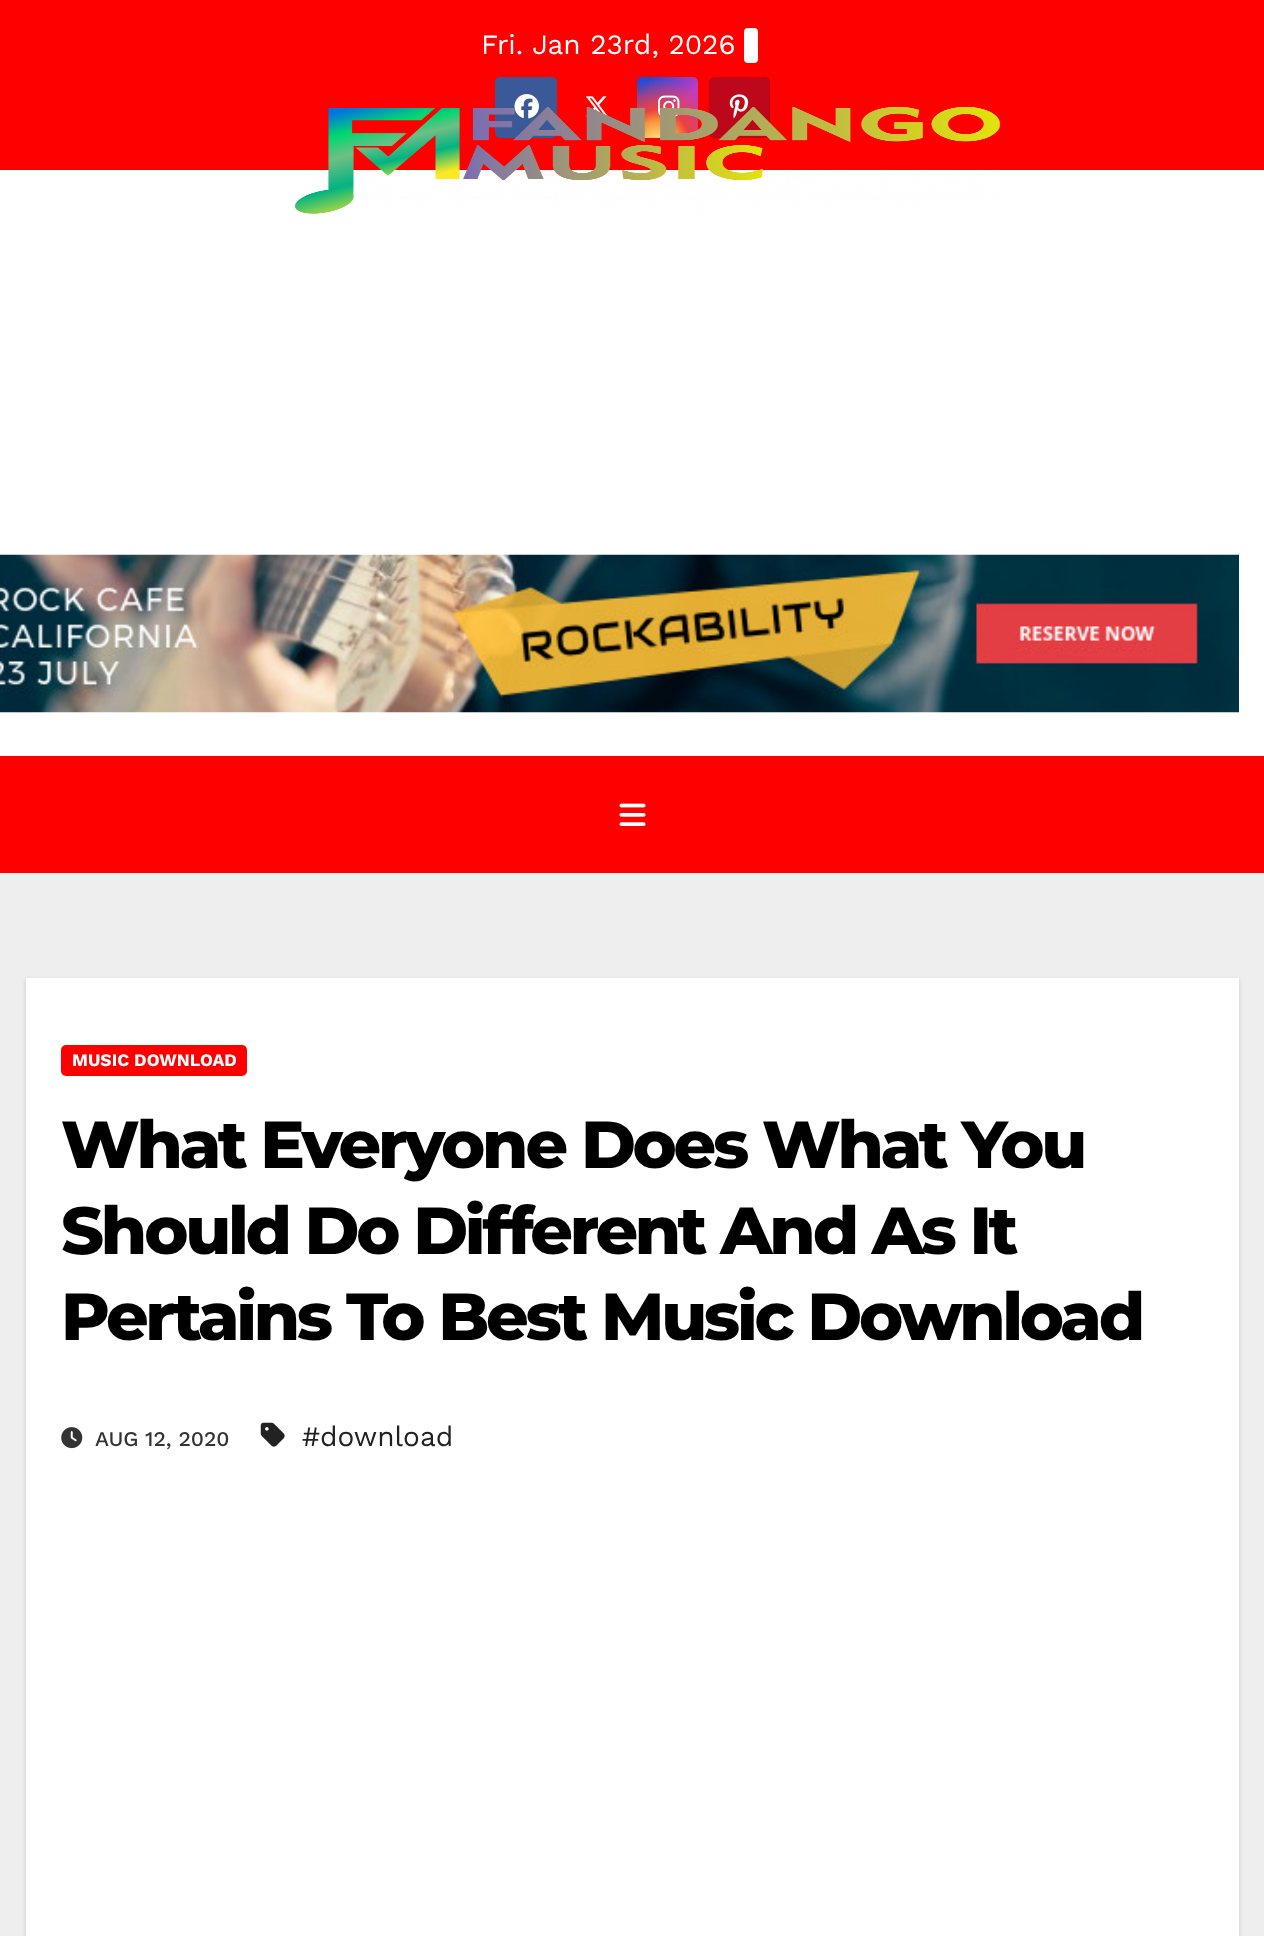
<svg xmlns="http://www.w3.org/2000/svg" xmlns:xlink="http://www.w3.org/1999/xlink" width="1264" height="1936" viewBox="0 0 1264 1936">
<style>
.cls-1{font:28px Work Sans;fill:#ffffff}
.cls-2{font:bold 17.5px Work Sans;fill:#ffffff}
.cls-3{font:800 66.5px Montserrat;letter-spacing:-3.3px;fill:#000000}
.cls-4{font:500 21px Work Sans;fill:#333333}
.cls-5{font:28px Work Sans;fill:#212121}
</style>
<defs>
<linearGradient id="g1" gradientUnits="userSpaceOnUse" x1="637" y1="77" x2="698" y2="138"><stop offset="0.12" stop-color="#234bd7"/><stop offset="0.58" stop-color="#c33cbe"/></linearGradient>
<radialGradient id="g2" gradientUnits="userSpaceOnUse" cx="657" cy="142" r="77"><stop offset="0" stop-color="#ffe17d"/><stop offset="0.1" stop-color="#ffcd69"/><stop offset="0.28" stop-color="#fa9137"/><stop offset="0.42" stop-color="#eb4141"/><stop offset="0.82" stop-color="#eb4141" stop-opacity="0"/></radialGradient>
</defs>
<rect width="100%" height="100%" fill="#eeeeee"/>
<rect fill="#ff0000" x="0" y="0" width="1264" height="170"/>
<rect fill="#ffffff" x="744" y="28" width="14" height="35" rx="4"/>
<rect fill="#3b5998" x="495" y="77" width="62" height="61" rx="5"/>
<image xlink:href="image0.png" x="514" y="94" width="25" height="25"/>
<image xlink:href="image1.png" x="585" y="96" width="23" height="21"/>
<rect fill="url(#g1)" x="637" y="77" width="61" height="61" rx="5"/>
<rect fill="url(#g2)" x="637" y="80" width="61" height="58"/>
<image xlink:href="image2.png" x="658" y="95" width="22" height="22"/>
<rect fill="#bd081c" x="709" y="77" width="61" height="61" rx="5"/>
<image xlink:href="image3.png" x="729" y="94" width="20" height="25"/>
<rect fill="#ffffff" x="0" y="170" width="1264" height="586"/>
<image xlink:href="image4.png" x="294" y="107" width="706" height="107"/>
<image xlink:href="image5.png" x="0" y="554" width="1239" height="159"/>
<rect fill="#ff0000" x="0" y="756" width="1264" height="117"/>
<image xlink:href="image6.png" x="619" y="803" width="27" height="23"/>
<rect fill="#000000" fill-opacity="0.15" filter="blur(2.5px)" x="26" y="980" width="1213" height="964"/>
<rect fill="#ffffff" x="26" y="978" width="1213" height="958"/>
<rect fill="#ff0000" x="61" y="1045" width="186" height="31" rx="5"/>
<image xlink:href="image7.png" x="61" y="1427" width="22" height="22"/>
<image xlink:href="image8.png" x="260" y="1422" width="25" height="25"/>
<text class="cls-1" x="481" y="54">Fri. Jan 23rd, 2026</text>
<text class="cls-2" x="72" y="1066">MUSIC DOWNLOAD</text>
<text class="cls-3"><tspan x="61" y="1168">What Everyone Does What You</tspan><tspan x="61" y="1254">Should Do Different And As It</tspan><tspan x="61" y="1340">Pertains To Best Music Download</tspan></text>
<text class="cls-4" x="95" y="1446">AUG 12, 2020</text>
<text class="cls-5" x="302" y="1446">#download</text>
</svg>
